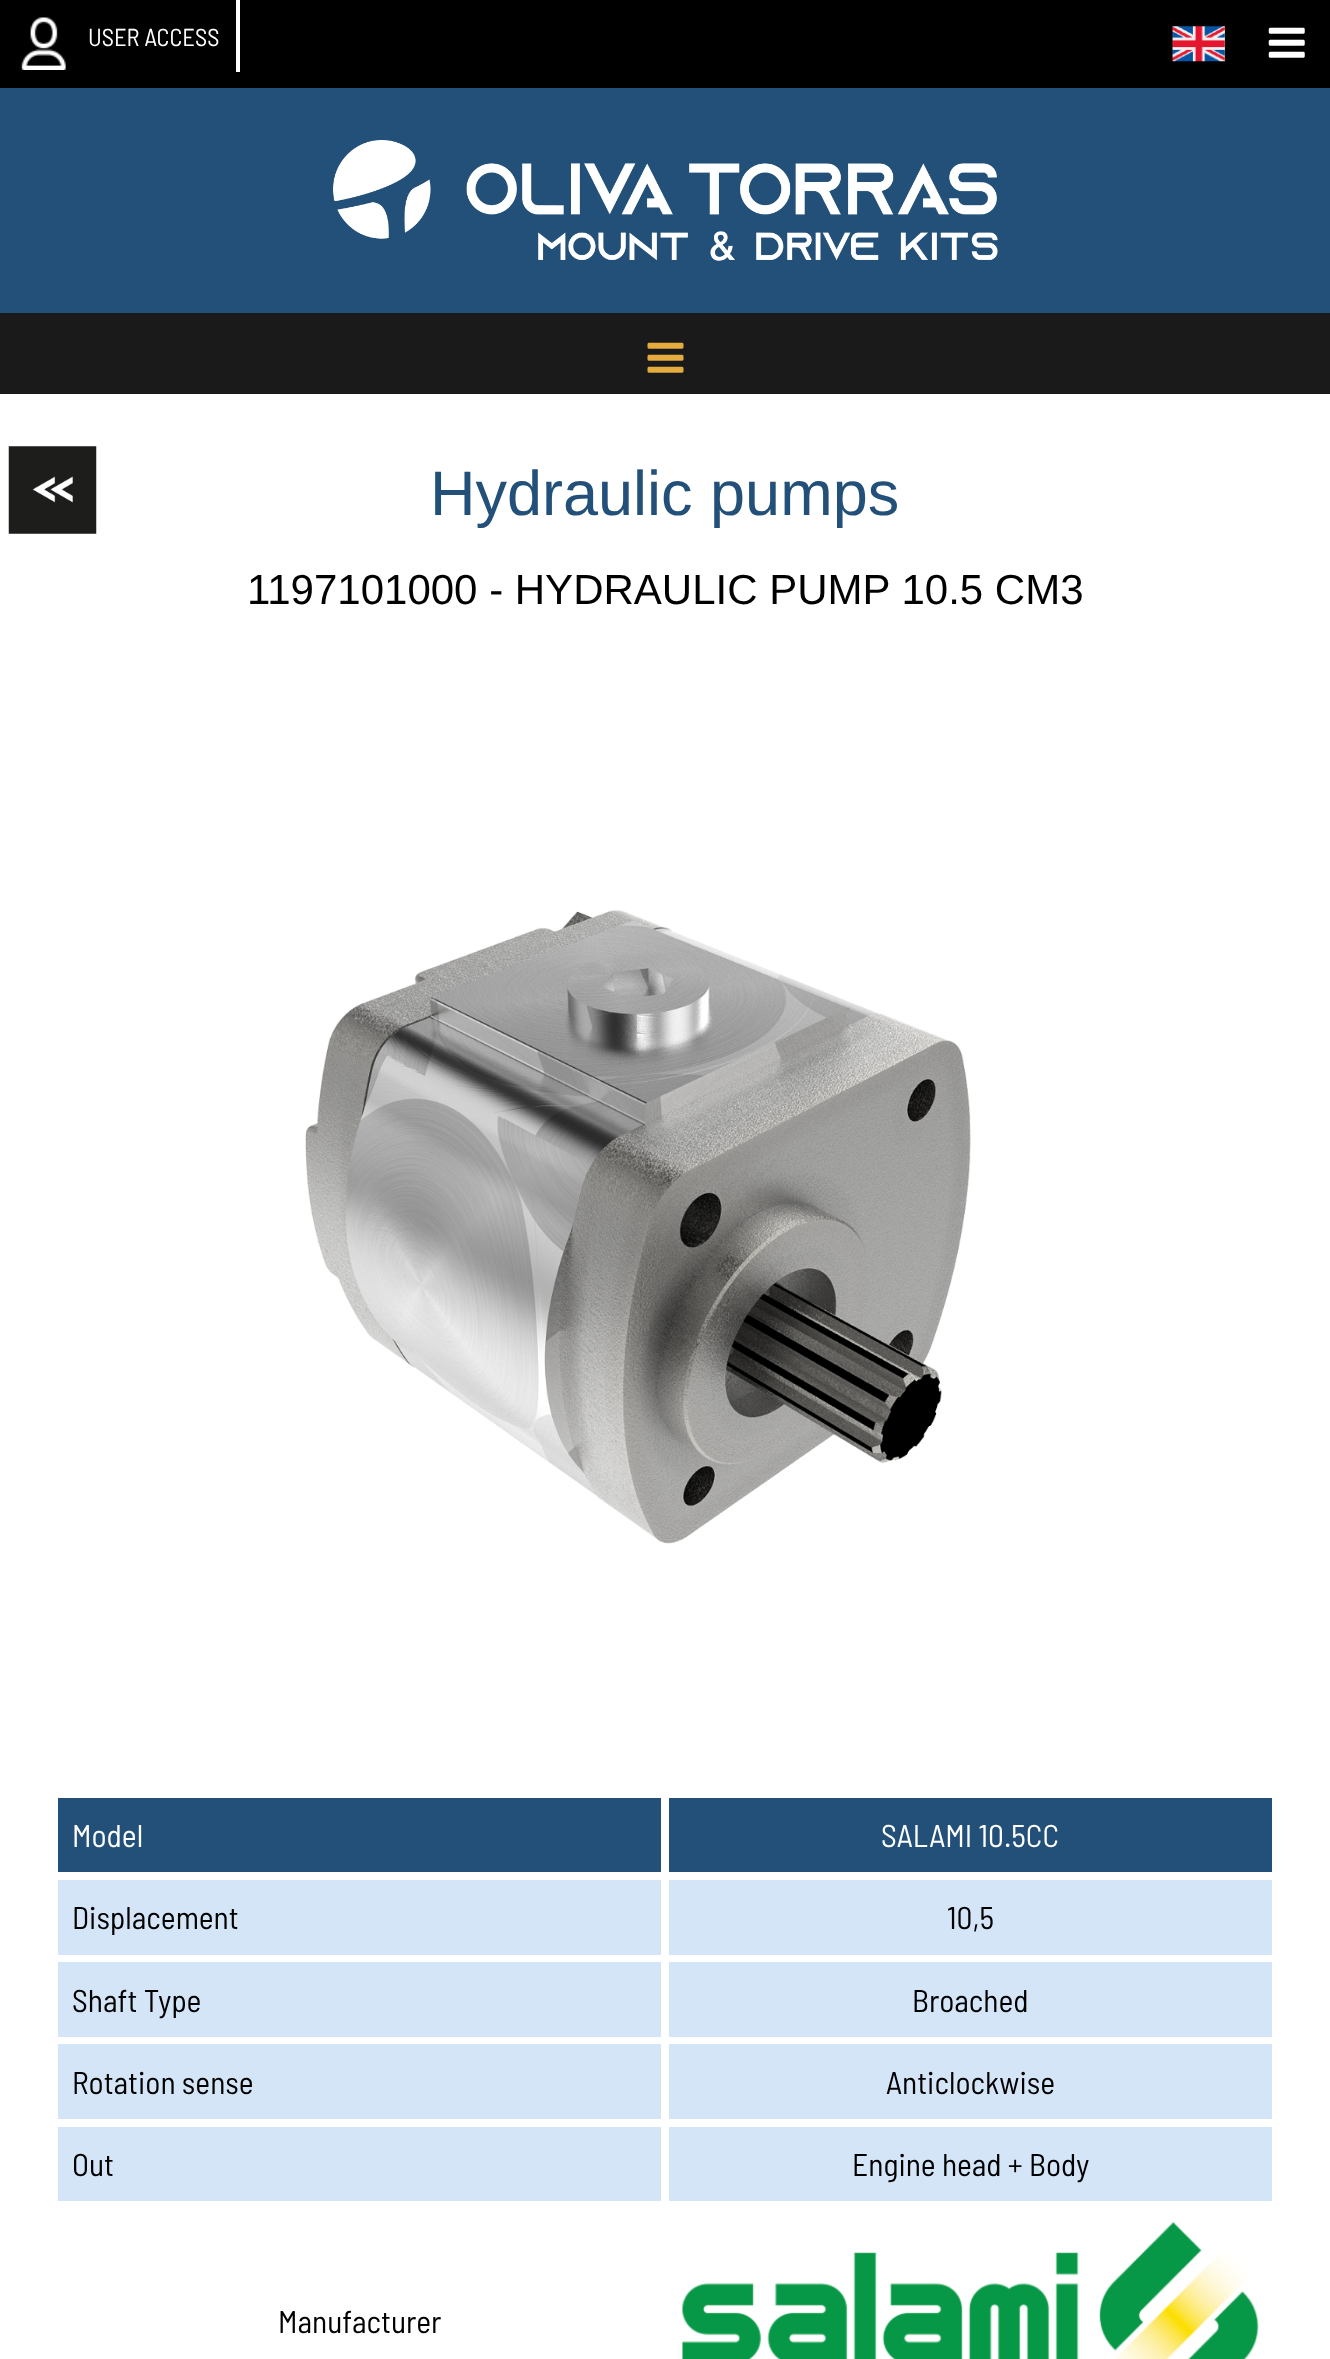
<svg xmlns="http://www.w3.org/2000/svg" xmlns:xlink="http://www.w3.org/1999/xlink" width="1330" height="2359" viewBox="0 0 1330 2359">
<style>
.cls-1{font:24.5px Barlow Semi Condensed;fill:#ffffff}
.cls-2{font:63px Liberation Sans;fill:#235079}
.cls-3{font:42px Liberation Sans;fill:#000000}
.cls-4{font:31.5px Barlow Semi Condensed;fill:#ffffff}
.cls-5{font:31.5px Barlow Semi Condensed;fill:#000000}
</style>
<rect width="100%" height="100%" fill="#ffffff"/>
<rect fill="#000000" x="0" y="0" width="1330" height="88"/>
<image xlink:href="image0.png" x="21" y="17" width="45" height="53"/>
<rect fill="#ffffff" x="236" y="0" width="4" height="72"/>
<image xlink:href="image1.png" x="1172" y="26" width="53" height="36"/>
<image xlink:href="image2.png" x="1268" y="27" width="37" height="31"/>
<rect fill="#235079" x="0" y="88" width="1330" height="225"/>
<image xlink:href="image3.png" x="333" y="140" width="665" height="121"/>
<rect fill="#1a1a1a" x="0" y="313" width="1330" height="81"/>
<image xlink:href="image4.png" x="647" y="342" width="37" height="31"/>
<image xlink:href="image5.png" x="8" y="446" width="89" height="88"/>
<image xlink:href="image6.png" x="305" y="910" width="666" height="634"/>
<rect fill="#235079" x="58" y="1798" width="603" height="74"/>
<rect fill="#235079" x="669" y="1798" width="603" height="74"/>
<rect fill="#d4e5f7" x="58" y="1880" width="603" height="75"/>
<rect fill="#d4e5f7" x="669" y="1880" width="603" height="75"/>
<rect fill="#d4e5f7" x="58" y="1962" width="603" height="75"/>
<rect fill="#d4e5f7" x="669" y="1962" width="603" height="75"/>
<rect fill="#d4e5f7" x="58" y="2044" width="603" height="75"/>
<rect fill="#d4e5f7" x="669" y="2044" width="603" height="75"/>
<rect fill="#d4e5f7" x="58" y="2127" width="603" height="74"/>
<rect fill="#d4e5f7" x="669" y="2127" width="603" height="74"/>
<image xlink:href="image7.png" x="682" y="2222" width="577" height="137"/>
<text class="cls-1" x="88" y="46">USER ACCESS</text>
<text class="cls-2" x="430" y="515">Hydraulic pumps</text>
<text class="cls-3" x="247" y="604">1197101000 - HYDRAULIC PUMP 10.5 CM3</text>
<text class="cls-4" x="72" y="1847">Model</text>
<text class="cls-4" x="881" y="1847">SALAMI 10.5CC</text>
<text class="cls-5" x="72" y="1929">Displacement</text>
<text class="cls-5" x="947" y="1929">10,5</text>
<text class="cls-5" x="72" y="2012">Shaft Type</text>
<text class="cls-5" x="912" y="2012">Broached</text>
<text class="cls-5" x="72" y="2094">Rotation sense</text>
<text class="cls-5" x="886" y="2094">Anticlockwise</text>
<text class="cls-5" x="72" y="2176">Out</text>
<text class="cls-5" x="852" y="2176">Engine head + Body</text>
<text class="cls-5" x="278" y="2333">Manufacturer</text>
</svg>
